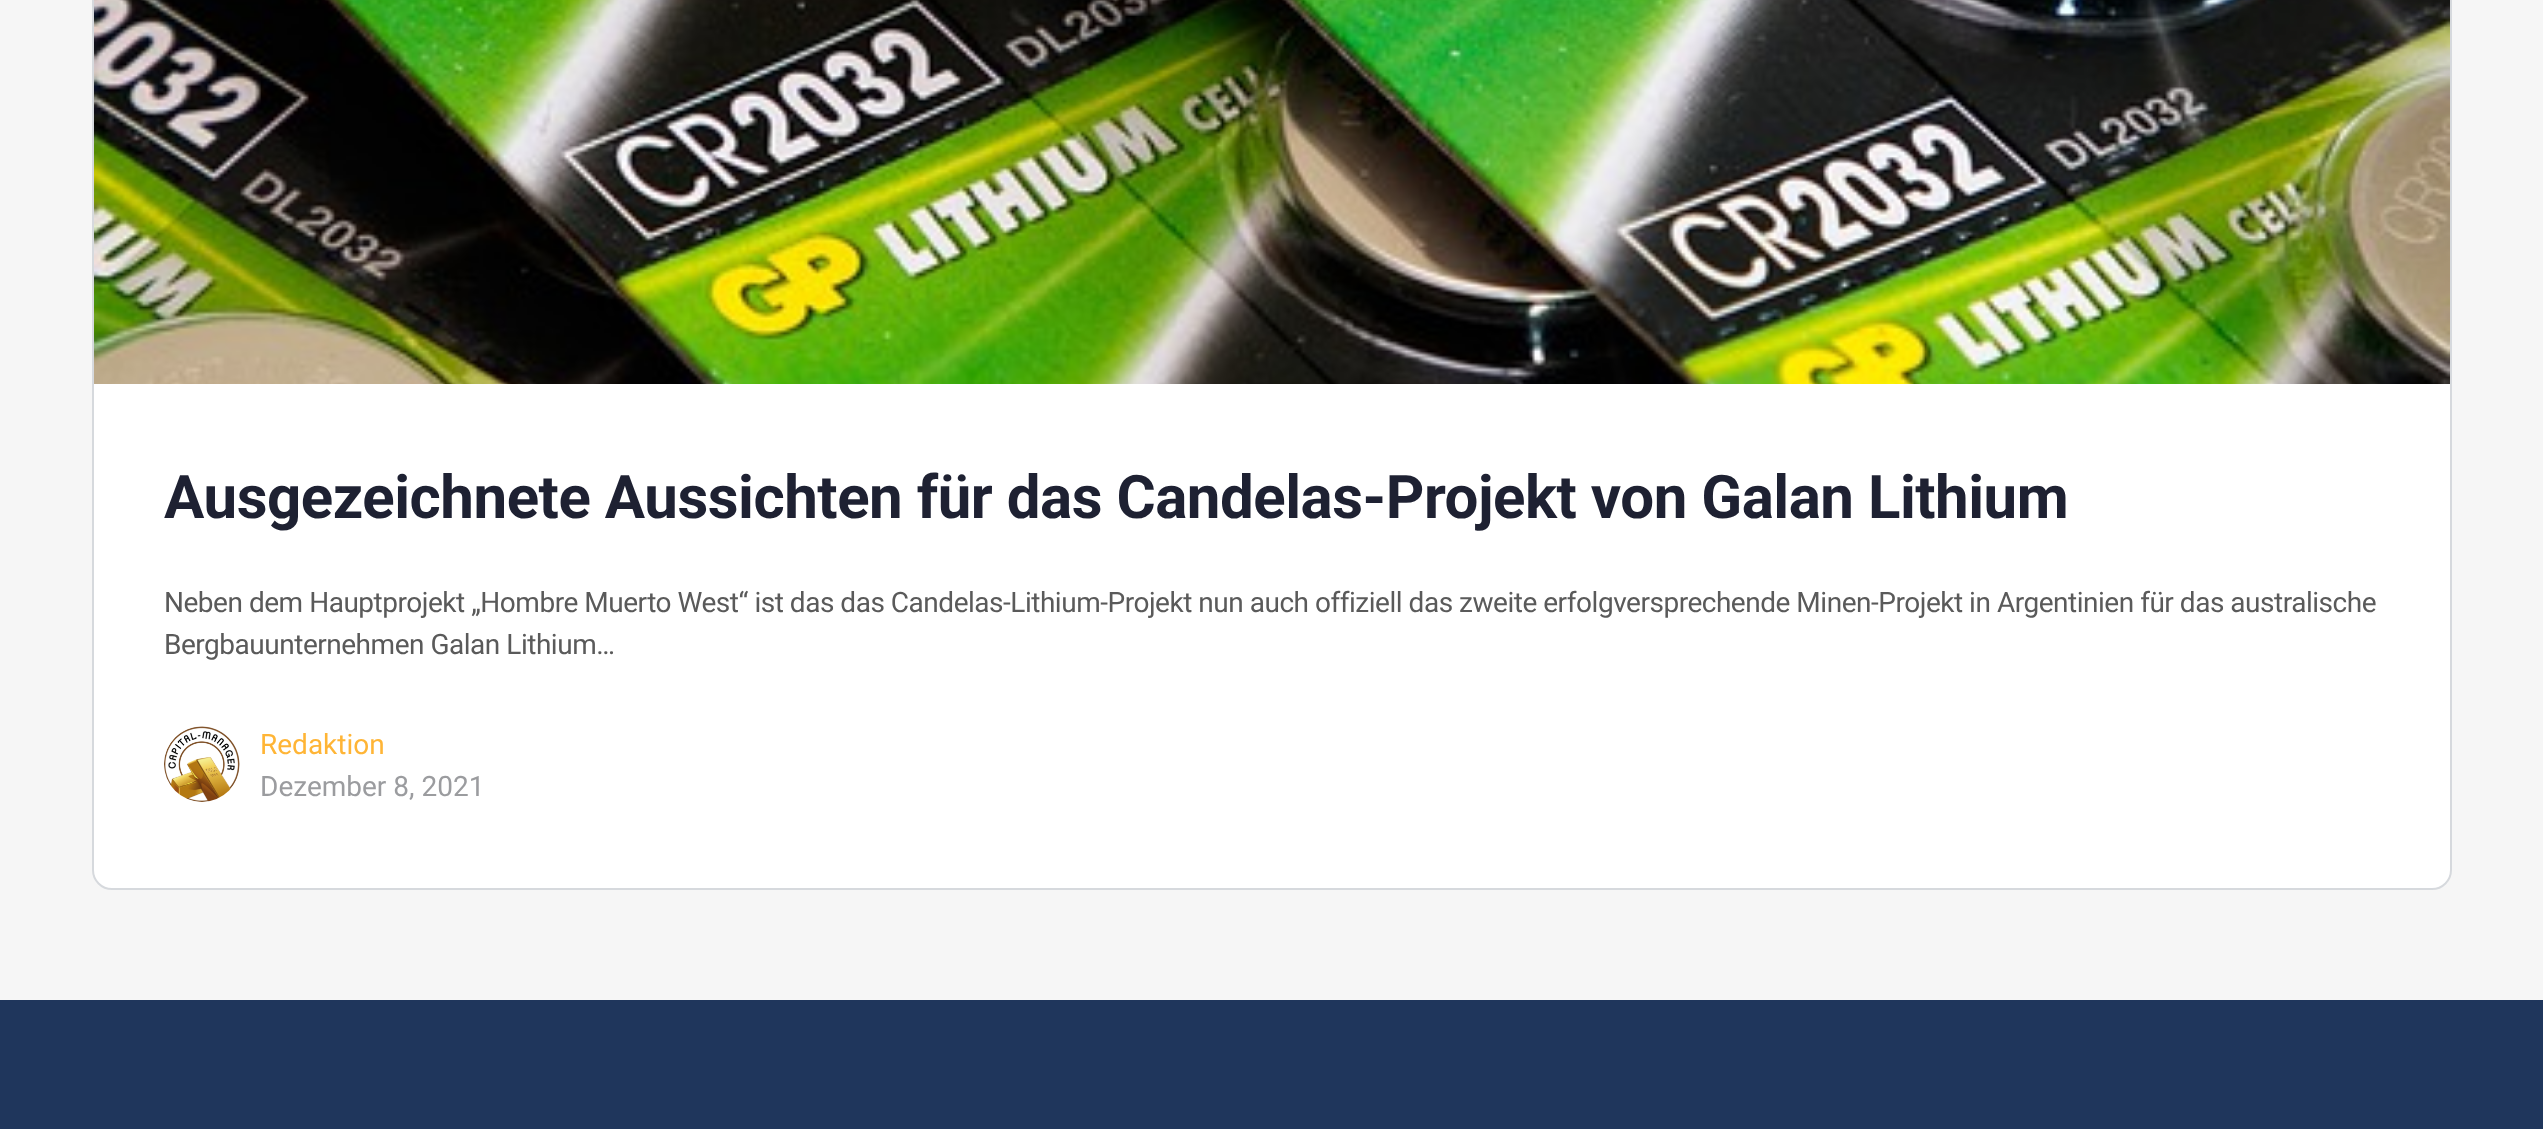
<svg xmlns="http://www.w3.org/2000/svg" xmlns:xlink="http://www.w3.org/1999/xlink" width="2543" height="1129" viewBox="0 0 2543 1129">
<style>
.cls-1{font:bold 60px Roboto;letter-spacing:-0.48px;fill:#1e2132}
.cls-2{font:28px Roboto;letter-spacing:-0.48px;fill:#5a5a5a}
.cls-3{font:28px Roboto;fill:#ffb536}
.cls-4{font:28px Roboto;fill:#9b9c9f}
</style>
<rect width="100%" height="100%" fill="#f6f6f6"/>
<rect fill="#ffffff" stroke="#d6d9dd" stroke-width="2" x="93" y="-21" width="2358" height="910" rx="19"/>
<image xlink:href="image0.png" x="94" y="0" width="2356" height="384"/>
<image xlink:href="image1.png" x="164" y="726" width="76" height="76"/>
<rect fill="#1f365c" x="0" y="1000" width="2543" height="129"/>
<text class="cls-1" x="164" y="518">Ausgezeichnete Aussichten für das Candelas-Projekt von Galan Lithium</text>
<text class="cls-2"><tspan x="164" y="612">Neben dem Hauptprojekt „Hombre Muerto West“ ist das das Candelas-Lithium-Projekt nun auch offiziell das zweite erfolgversprechende Minen-Projekt in Argentinien für das australische</tspan><tspan x="164" y="654">Bergbauunternehmen Galan Lithium…</tspan></text>
<text class="cls-3" x="260" y="754">Redaktion</text>
<text class="cls-4" x="260" y="796">Dezember 8, 2021</text>
</svg>
